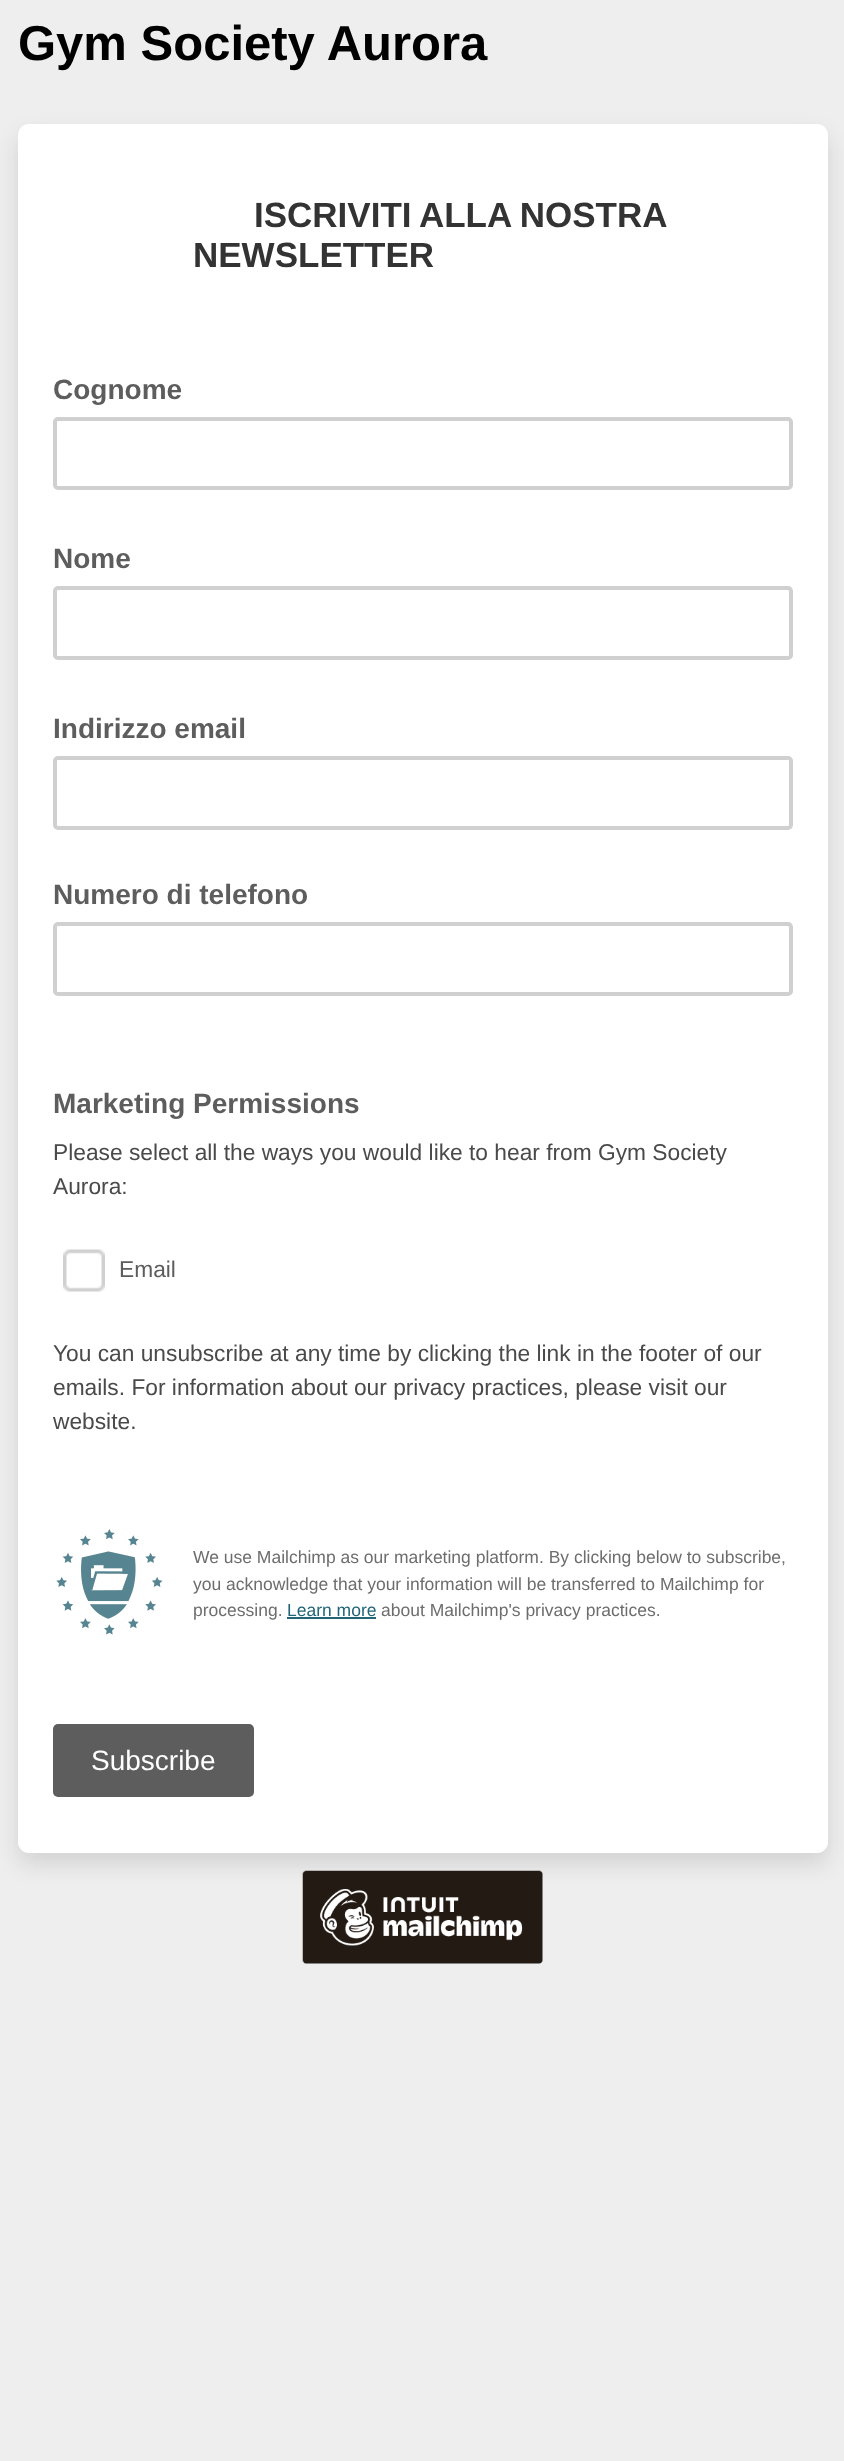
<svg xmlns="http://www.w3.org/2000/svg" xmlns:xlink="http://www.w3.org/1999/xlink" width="844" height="2461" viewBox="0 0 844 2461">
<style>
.cls-1{font:bold 49px Liberation Sans;fill:#000000}
.cls-2{font:bold 35px Liberation Sans;fill:#333333}
.cls-3{font:bold 28px Liberation Sans;fill:#5d5d5d}
.cls-4{font:22.75px Liberation Sans;fill:#4a4a4a}
.cls-5{font:22.75px Liberation Sans;fill:#5d5d5d}
.cls-6{font:17.5px Liberation Sans;fill:#6d6d6d}
.cls-7{font:17.5px Liberation Sans;fill:#206578}
.cls-8{font:28px Liberation Sans;fill:#ffffff}
</style>
<rect width="100%" height="100%" fill="#eeeeee"/>
<rect fill="#0d1216" fill-opacity="0.12" filter="blur(10.5px)" x="18" y="135" width="810" height="1729" rx="11"/>
<rect fill="#ffffff" x="18" y="124" width="810" height="1729" rx="11"/>
<rect fill="none" stroke="#d0d0d0" stroke-width="4" x="55" y="419" width="736" height="69" rx="3"/>
<rect fill="none" stroke="#d0d0d0" stroke-width="4" x="55" y="588" width="736" height="70" rx="3"/>
<rect fill="none" stroke="#d0d0d0" stroke-width="4" x="55" y="758" width="736" height="70" rx="3"/>
<rect fill="none" stroke="#d0d0d0" stroke-width="4" x="55" y="924" width="736" height="70" rx="3"/>
<image xlink:href="image0.png" x="63" y="1249" width="42" height="43"/>
<image xlink:href="image1.png" x="56" y="1529" width="107" height="106"/>
<rect fill="#206578" x="287" y="1617" width="89" height="2"/>
<rect fill="#5d5d5d" x="53" y="1724" width="201" height="73" rx="5"/>
<image xlink:href="image2.png" x="302" y="1870" width="241" height="94"/>
<text class="cls-1" x="18" y="60">Gym Society Aurora</text>
<text class="cls-2" x="254" y="227" word-spacing="-1">ISCRIVITI ALLA NOSTRA</text>
<text class="cls-2" x="193" y="267">NEWSLETTER</text>
<text class="cls-3" x="53" y="399">Cognome</text>
<text class="cls-3" x="53" y="568">Nome</text>
<text class="cls-3" x="53" y="738">Indirizzo email</text>
<text class="cls-3" x="53" y="904">Numero di telefono</text>
<text class="cls-3" x="53" y="1113">Marketing Permissions</text>
<text class="cls-4"><tspan x="53" y="1160">Please select all the ways you would like to hear from Gym Society</tspan><tspan x="53" y="1194">Aurora:</tspan></text>
<text class="cls-5" x="119" y="1277">Email</text>
<text class="cls-4"><tspan x="53" y="1361">You can unsubscribe at any time by clicking the link in the footer of our</tspan><tspan x="53" y="1395">emails. For information about our privacy practices, please visit our</tspan><tspan x="53" y="1429">website.</tspan></text>
<text class="cls-6"><tspan x="193" y="1563">We use Mailchimp as our marketing platform. By clicking below to subscribe,</tspan><tspan x="193" y="1590">you acknowledge that your information will be transferred to Mailchimp for</tspan><tspan x="193" y="1616">processing.</tspan></text>
<text class="cls-7" x="287" y="1616">Learn more</text>
<text class="cls-6" x="381" y="1616">about Mailchimp's privacy practices.</text>
<text class="cls-8" x="91" y="1770">Subscribe</text>
</svg>
